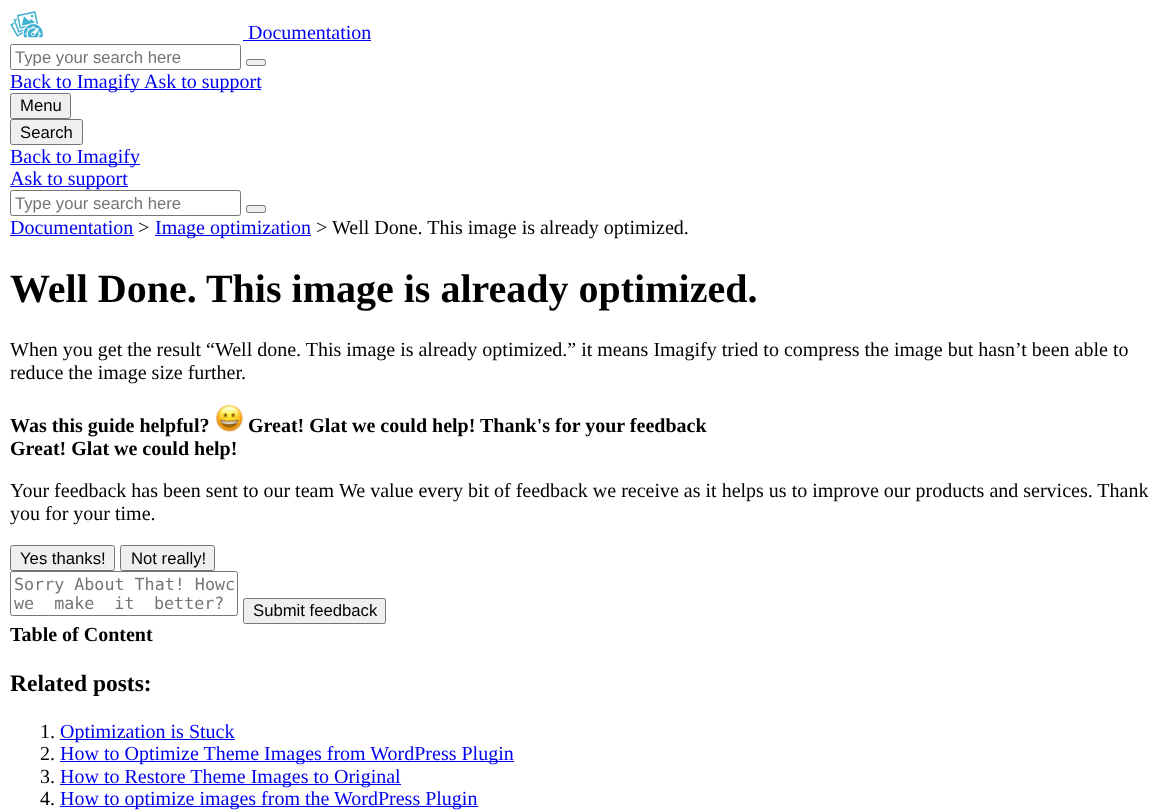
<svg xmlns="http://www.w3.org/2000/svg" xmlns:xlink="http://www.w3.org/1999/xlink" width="1164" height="810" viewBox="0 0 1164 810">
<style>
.cls-1{font:20px Liberation Serif;fill:#0000ee}
.cls-2{font:16.7px Liberation Sans;fill:#757575}
.cls-3{font:16.7px Liberation Sans;fill:#000000}
.cls-4{font:20px Liberation Serif;fill:#000000}
.cls-5{font:bold 40px Liberation Serif;fill:#000000}
.cls-6{font:bold 20px Liberation Serif;fill:#000000}
.cls-7{font:16.7px DejaVu Sans Mono;fill:#757575}
.cls-8{font:bold 23.5px Liberation Serif;fill:#000000}
</style>
<defs>
<clipPath id="clip1"><rect x="15" y="48" width="221" height="18"/></clipPath>
</defs>
<rect width="100%" height="100%" fill="#ffffff"/>
<image xlink:href="image0.png" x="10" y="11" width="33" height="27"/>
<rect fill="#0000ee" x="243" y="40" width="128" height="1"/>
<rect fill="none" stroke="#767676" x="10.5" y="44.5" width="230" height="25" rx="2"/>
<rect fill="#efefef" stroke="#767676" x="246.5" y="59.5" width="19" height="6" rx="2"/>
<rect fill="#0000ee" x="10" y="89" width="251" height="1"/>
<rect fill="#efefef" stroke="#767676" x="10.5" y="93.5" width="60" height="25" rx="2"/>
<rect fill="#efefef" stroke="#767676" x="10.5" y="119.5" width="72" height="25" rx="2"/>
<rect fill="#0000ee" x="10" y="164" width="130" height="1"/>
<rect fill="#0000ee" x="10" y="186" width="118" height="1"/>
<rect fill="none" stroke="#767676" x="10.5" y="190.5" width="230" height="25" rx="2"/>
<rect fill="#efefef" stroke="#767676" x="246.5" y="205.5" width="19" height="7" rx="2"/>
<rect fill="#0000ee" x="10" y="235" width="124" height="1"/>
<rect fill="#0000ee" x="155" y="235" width="156" height="1"/>
<image xlink:href="image1.png" x="216" y="404" width="27" height="28"/>
<rect fill="#efefef" stroke="#767676" x="10.5" y="545.5" width="104" height="25" rx="2"/>
<rect fill="#efefef" stroke="#767676" x="120.5" y="545.5" width="94" height="25" rx="2"/>
<rect fill="none" stroke="#767676" x="10.5" y="571.5" width="227" height="44" rx="2"/>
<rect fill="#efefef" stroke="#767676" x="243.5" y="598.5" width="142" height="25" rx="2"/>
<rect fill="#0000ee" x="60" y="739" width="175" height="1"/>
<rect fill="#0000ee" x="60" y="761" width="454" height="1"/>
<rect fill="#0000ee" x="60" y="784" width="341" height="1"/>
<rect fill="#0000ee" x="60" y="806" width="418" height="1"/>
<text class="cls-1" x="248" y="39">Documentation</text>
<g clip-path="url(#clip1)">
<text class="cls-2" x="15" y="63">Type your search here</text>
</g>
<text class="cls-1" x="10" y="88">Back to Imagify</text>
<text class="cls-1" x="144" y="88">Ask to support</text>
<text class="cls-3"><tspan x="20" y="111">Menu</tspan><tspan x="20" y="138">Search</tspan></text>
<text class="cls-1"><tspan x="10" y="163">Back to Imagify</tspan><tspan x="10" y="185">Ask to support</tspan></text>
<text class="cls-2" x="15" y="209">Type your search here</text>
<text class="cls-1" x="10" y="234">Documentation</text>
<text class="cls-4" x="138" y="234">&gt;</text>
<text class="cls-1" x="155" y="234">Image optimization</text>
<text class="cls-4" x="316" y="234">&gt;</text>
<text class="cls-4" x="332" y="234">Well Done. This image is already optimized.</text>
<text class="cls-5" x="10" y="302">Well Done. This image is already optimized.</text>
<text class="cls-4"><tspan x="10" y="356">When you get the result “Well done. This image is already optimized.” it means Imagify tried to compress the image but hasn’t been able to</tspan><tspan x="10" y="379">reduce the image size further.</tspan></text>
<text class="cls-6" x="10" y="432">Was this guide helpful?</text>
<text class="cls-6" x="248" y="432">Great! Glat we could help!</text>
<text class="cls-6" x="480" y="432">Thank's for your feedback</text>
<text class="cls-6" x="10" y="455">Great! Glat we could help!</text>
<text class="cls-4" x="10" y="497">Your feedback has been sent to our team</text>
<text class="cls-4" x="339" y="497">We value every bit of feedback we receive as it helps us to improve our products and services. Thank</text>
<text class="cls-4" x="10" y="520">you for your time.</text>
<text class="cls-3" x="20" y="564">Yes thanks!</text>
<text class="cls-3" x="131" y="564">Not really!</text>
<text class="cls-7"><tspan x="14" y="590">Sorry About That! Howc</tspan><tspan x="14" y="609" word-spacing="10">we make it</tspan></text>
<text class="cls-7" x="154" y="609">better?</text>
<text class="cls-3" x="253" y="616">Submit feedback</text>
<text class="cls-6" x="10" y="641">Table of Content</text>
<text class="cls-8" x="10" y="691">Related posts:</text>
<text class="cls-4" x="40" y="738">1.</text>
<text class="cls-1" x="60" y="738">Optimization is Stuck</text>
<text class="cls-4" x="40" y="760">2.</text>
<text class="cls-1" x="60" y="760">How to Optimize Theme Images from WordPress Plugin</text>
<text class="cls-4" x="40" y="783">3.</text>
<text class="cls-1" x="60" y="783">How to Restore Theme Images to Original</text>
<text class="cls-4" x="40" y="805">4.</text>
<text class="cls-1" x="60" y="805">How to optimize images from the WordPress Plugin</text>
</svg>
